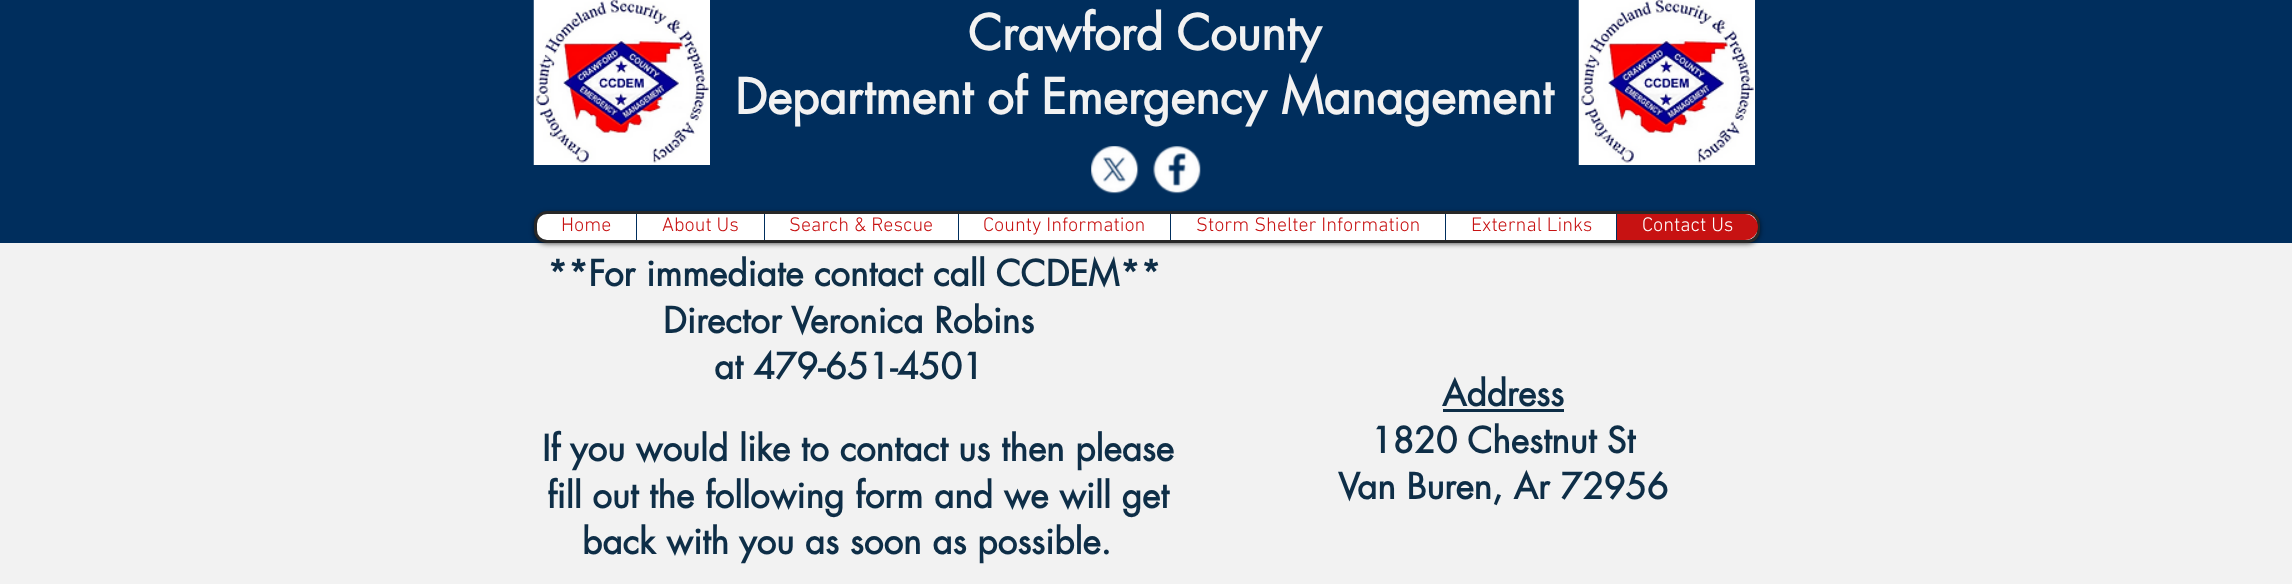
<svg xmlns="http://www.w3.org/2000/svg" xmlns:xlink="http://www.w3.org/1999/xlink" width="2292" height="584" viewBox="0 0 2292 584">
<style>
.cls-1{font:bold 47.5px futura;fill:#f2f2f2}
.cls-2{font:300 20px 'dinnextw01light';fill:#c71212}
.cls-3{font:300 20px 'dinnextw01light';fill:#ffffff}
.cls-4{font:bold 35px futura;fill:#0e2e47}
</style>
<rect width="100%" height="100%" fill="#f2f2f2"/>
<rect fill="#002e5d" x="0" y="0" width="2292" height="243"/>
<image xlink:href="image0.png" x="533" y="0" width="177" height="165"/>
<image xlink:href="image1.png" x="1578" y="0" width="177" height="165"/>
<image xlink:href="image2.png" x="1091" y="146" width="48" height="48"/>
<image xlink:href="image3.png" x="1153" y="146" width="48" height="48"/>
<rect fill="#000000" fill-opacity="0.6" filter="blur(2.5px)" x="534" y="213" width="1226" height="31" rx="13"/>
<rect fill="#ffffff" stroke="#282828" stroke-width="3" x="535.5" y="212.5" width="1223" height="29" rx="11.5"/>
<rect fill="#002e5d" x="636" y="214" width="1" height="26"/>
<rect fill="#002e5d" x="764" y="214" width="1" height="26"/>
<rect fill="#002e5d" x="958" y="214" width="1" height="26"/>
<rect fill="#002e5d" x="1170" y="214" width="1" height="26"/>
<rect fill="#002e5d" x="1445" y="214" width="1" height="26"/>
<path fill="#c71212" d="M1616 214H1745C1752 214 1758 220 1758 227C1758 234 1752 240 1745 240H1616Z"/>
<rect fill="#002e5d" x="1616" y="214" width="1" height="26"/>
<rect fill="#0e2e47" x="1443" y="409" width="121" height="3"/>
<text class="cls-1" x="968" y="50">Crawford County</text>
<text class="cls-1" x="735" y="114">Department of Emergency Management</text>
<text class="cls-2" x="561" y="231">Home</text>
<text class="cls-2" x="662" y="231">About Us</text>
<text class="cls-2" x="789" y="231">Search &amp; Rescue</text>
<text class="cls-2" x="983" y="231">County Information</text>
<text class="cls-2" x="1196" y="231">Storm Shelter Information</text>
<text class="cls-2" x="1471" y="231">External Links</text>
<text class="cls-3" x="1642" y="231">Contact Us</text>
<text class="cls-4" x="547" y="286">**For immediate contact call CCDEM**</text>
<text class="cls-4" x="663" y="333">Director Veronica Robins</text>
<text class="cls-4" x="714" y="379">at 479-651-4501</text>
<text class="cls-4" x="542" y="461">If you would like to contact us then please</text>
<text class="cls-4" x="547" y="508">fill out the following form and we will get</text>
<text class="cls-4" x="582" y="554">back with you as soon as possible.</text>
<text class="cls-4" x="1442" y="406">Address</text>
<text class="cls-4" x="1371" y="453">1820 Chestnut St</text>
<text class="cls-4" x="1338" y="499">Van Buren, Ar 72956</text>
</svg>
